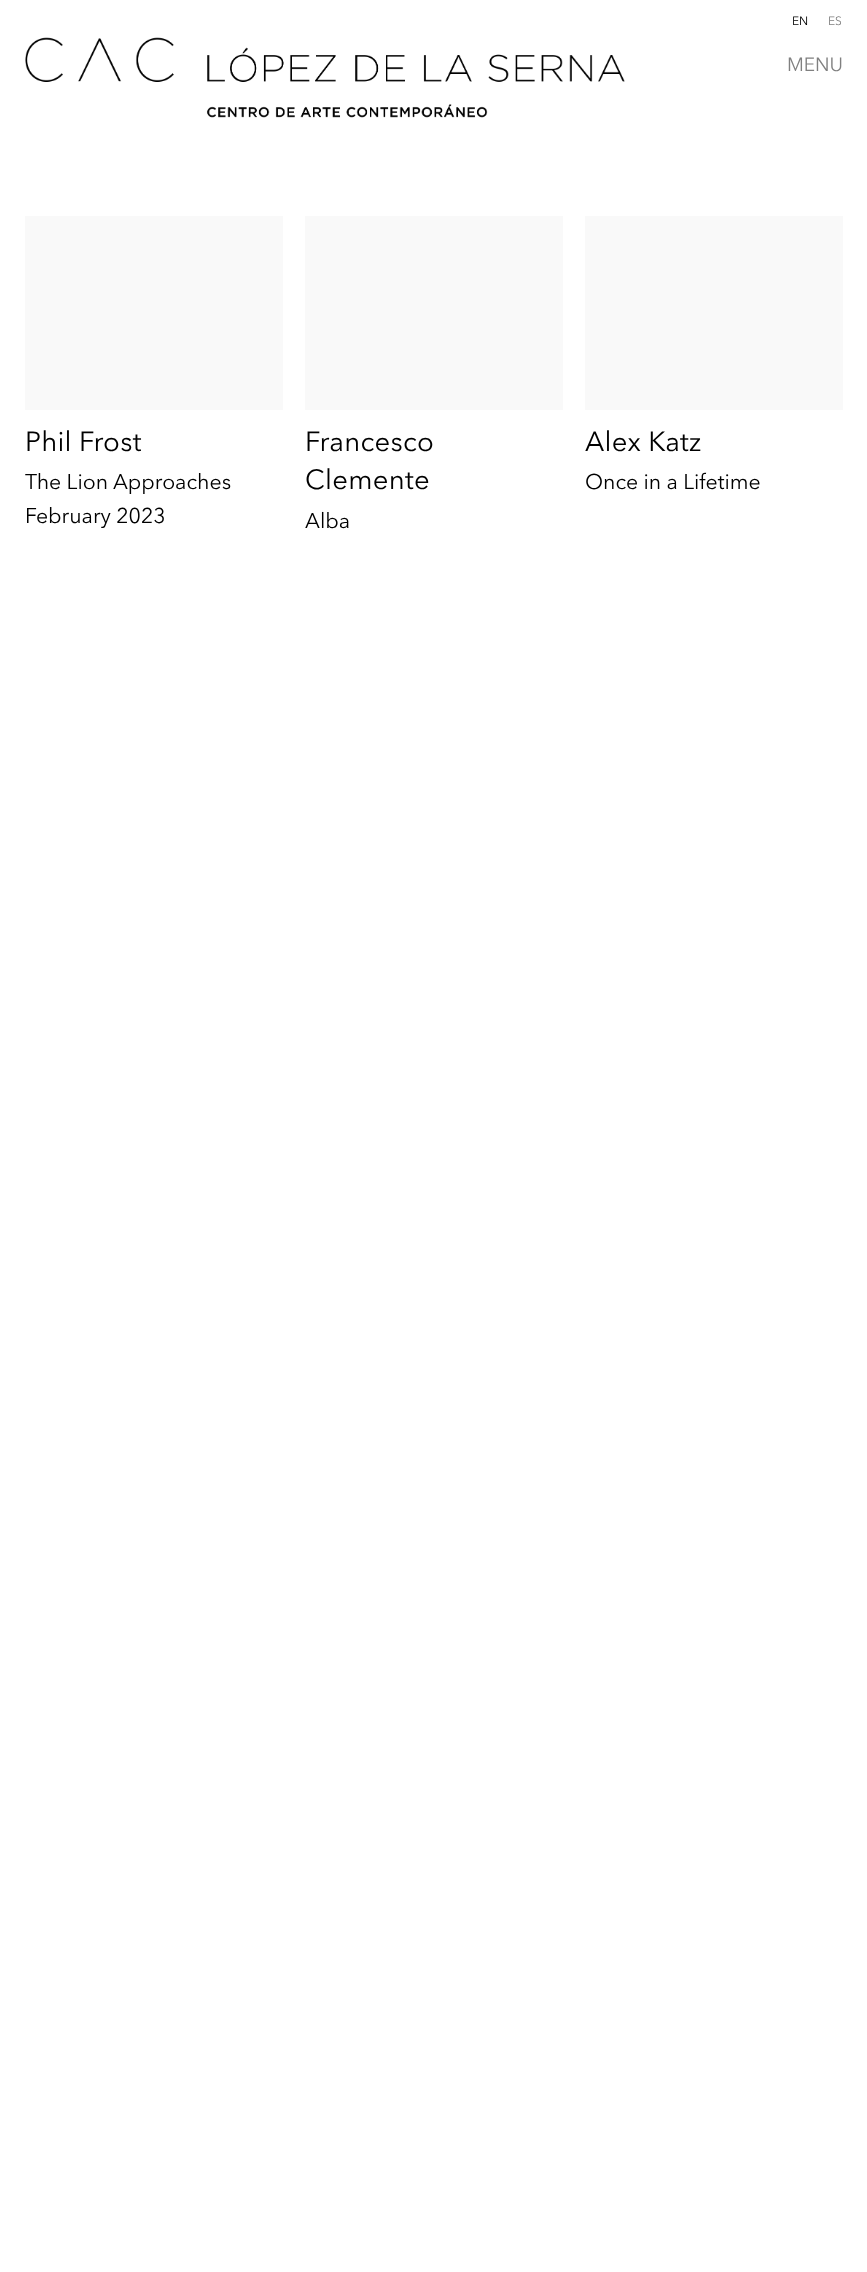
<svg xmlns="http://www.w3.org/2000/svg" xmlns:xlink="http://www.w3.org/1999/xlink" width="867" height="2272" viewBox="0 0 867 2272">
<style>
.cls-1{font:12px Avenir Next;fill:#000000}
.cls-2{font:12px Avenir Next;fill:#808080}
.cls-3{font:19px Avenir Next;fill:#808080}
.cls-4{font:27.5px Avenir Next;letter-spacing:0.25px;fill:#000000}
.cls-5{font:21.25px Avenir Next;fill:#000000}
</style>
<rect width="100%" height="100%" fill="#ffffff"/>
<image xlink:href="image0.png" x="25" y="37" width="600" height="81"/>
<rect fill="#f9f9f9" x="25" y="216" width="258" height="194"/>
<rect fill="#f9f9f9" x="305" y="216" width="258" height="194"/>
<rect fill="#f9f9f9" x="585" y="216" width="258" height="194"/>
<text class="cls-1" x="792" y="25">EN</text>
<text class="cls-2" x="828" y="25">ES</text>
<text class="cls-3" x="787" y="71">MENU</text>
<text class="cls-4" x="25" y="451">Phil Frost</text>
<text class="cls-5"><tspan x="25" y="489">The Lion Approaches</tspan><tspan x="25" y="523">February 2023</tspan></text>
<text class="cls-4"><tspan x="305" y="451">Francesco</tspan><tspan x="305" y="489">Clemente</tspan></text>
<text class="cls-5" x="305" y="528">Alba</text>
<text class="cls-4" x="585" y="451">Alex Katz</text>
<text class="cls-5" x="585" y="489">Once in a Lifetime</text>
</svg>
